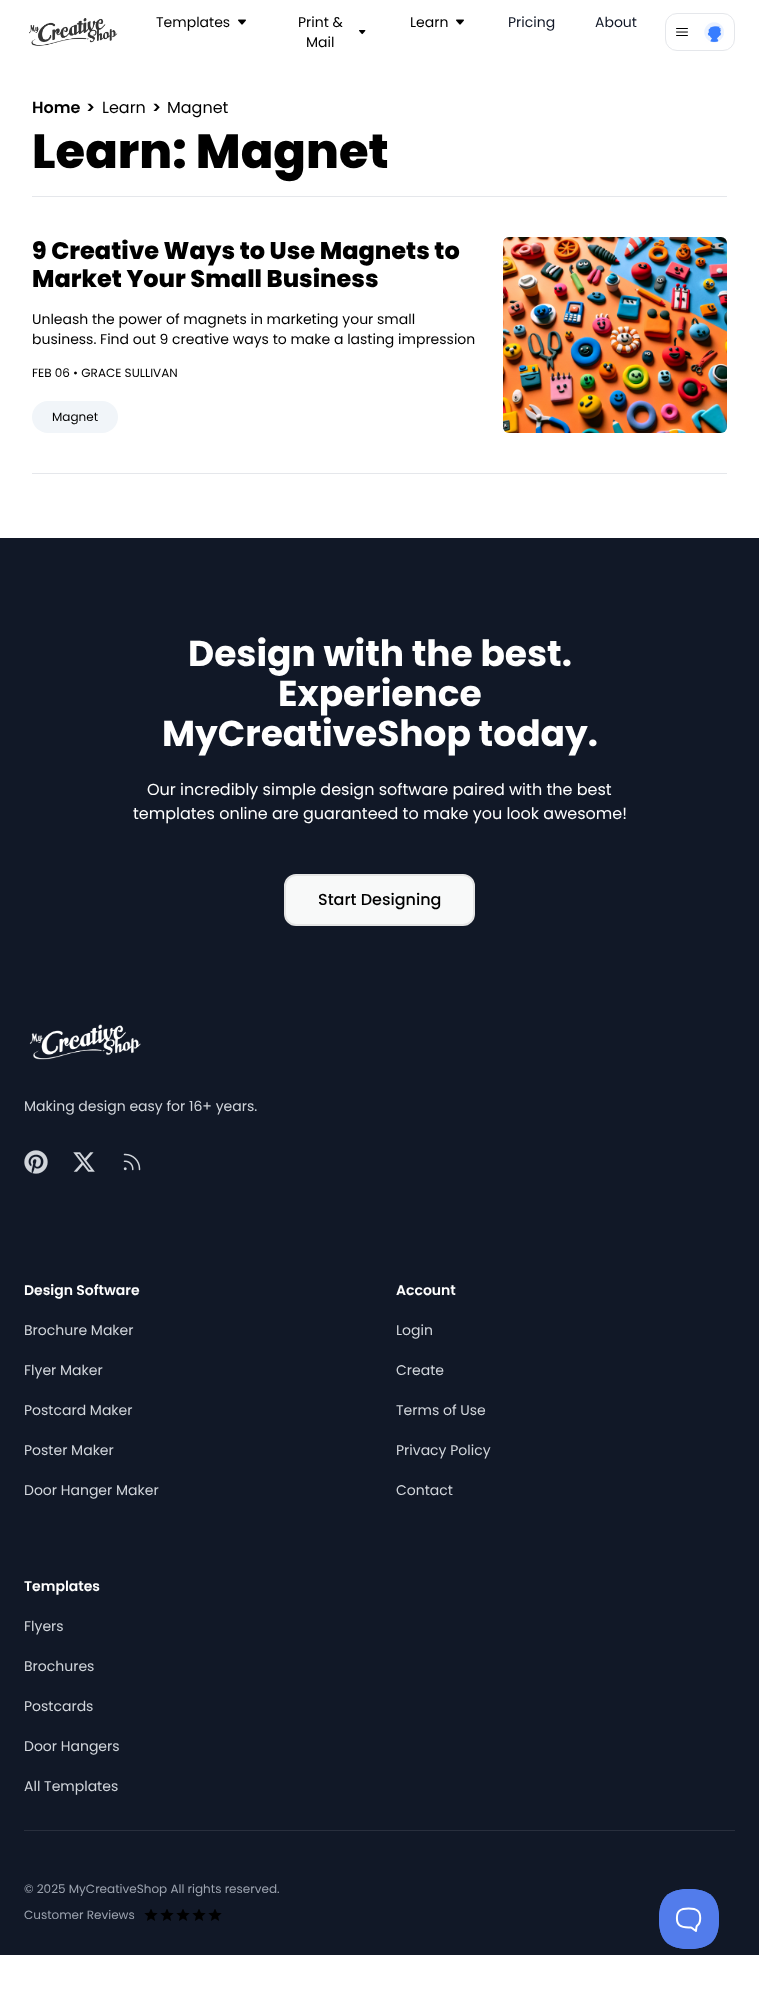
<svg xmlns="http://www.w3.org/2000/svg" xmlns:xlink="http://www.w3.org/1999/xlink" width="759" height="1989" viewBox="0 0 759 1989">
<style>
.cls-1{font:14px Poppins;fill:#000000}
.cls-2{font:14px Poppins;fill:#111827}
.cls-3{font:600 16px Poppins;fill:#000000}
.cls-4{font:16px Poppins;fill:#000000}
.cls-5{font:800 48px Poppins;fill:#000000}
.cls-6{font:800 24px Poppins;fill:#000000}
.cls-7{font:12px Poppins;fill:#000000}
.cls-8{font:bold 36px Poppins;fill:#ffffff}
.cls-9{font:16px Poppins;fill:#ffffff}
.cls-10{font:500 16px Poppins;fill:#000000}
.cls-11{font:14px Poppins;fill:#d1d5db}
.cls-12{font:600 14px Poppins;fill:#ffffff}
.cls-13{font:12px Poppins;fill:#9ca3af}
</style>
<rect width="100%" height="100%" fill="#ffffff"/>
<image xlink:href="image0.png" x="29" y="18" width="89" height="28"/>
<image xlink:href="image1.png" x="238" y="19" width="8" height="6"/>
<image xlink:href="image2.png" x="359" y="30" width="7" height="5"/>
<image xlink:href="image1.png" x="456" y="19" width="8" height="6"/>
<rect fill="none" stroke="#e5e7eb" x="665.5" y="13.5" width="69" height="37" rx="11.5"/>
<image xlink:href="image3.png" x="676" y="28" width="12" height="8"/>
<image xlink:href="image4.png" x="704" y="22" width="20" height="21"/>
<rect fill="#e5e7eb" x="32" y="196" width="695" height="1"/>
<rect fill="#f1f5f9" x="32" y="401" width="86" height="32" rx="16"/>
<image xlink:href="image5.png" x="503" y="237" width="224" height="196"/>
<rect fill="#e5e7eb" x="32" y="473" width="695" height="1"/>
<rect fill="#111827" x="0" y="538" width="759" height="1417"/>
<rect fill="#f8f9f9" stroke="#e5e5e5" stroke-width="2" x="285" y="875" width="189" height="50" rx="11"/>
<image xlink:href="image6.png" x="29" y="1024" width="112" height="36"/>
<image xlink:href="image7.png" x="24" y="1150" width="24" height="24"/>
<image xlink:href="image8.png" x="73" y="1152" width="22" height="20"/>
<image xlink:href="image9.png" x="123" y="1153" width="18" height="18"/>
<rect fill="#292f3d" x="24" y="1830" width="711" height="1"/>
<image xlink:href="image10.png" x="144" y="1909" width="14" height="12"/>
<image xlink:href="image10.png" x="160" y="1909" width="14" height="12"/>
<image xlink:href="image10.png" x="176" y="1909" width="14" height="12"/>
<image xlink:href="image10.png" x="192" y="1909" width="14" height="12"/>
<image xlink:href="image10.png" x="208" y="1909" width="14" height="12"/>
<image xlink:href="image11.png" x="659" y="1889" width="60" height="60"/>
<text class="cls-1" x="156" y="27">Templates</text>
<text class="cls-1" x="298" y="27">Print &amp;</text>
<text class="cls-1" x="306" y="47">Mail</text>
<text class="cls-1" x="410" y="27">Learn</text>
<text class="cls-2" x="508" y="27">Pricing</text>
<text class="cls-2" x="595" y="27">About</text>
<text class="cls-3" x="32" y="113">Home</text>
<text class="cls-3" x="86" y="113">&gt;</text>
<text class="cls-4" x="102" y="113">Learn</text>
<text class="cls-3" x="152" y="113">&gt;</text>
<text class="cls-4" x="167" y="113">Magnet</text>
<text class="cls-5" x="32" y="168">Learn: Magnet</text>
<text class="cls-6"><tspan x="32" y="259">9 Creative Ways to Use Magnets to</tspan><tspan x="32" y="287">Market Your Small Business</tspan></text>
<text class="cls-1"><tspan x="32" y="324">Unleash the power of magnets in marketing your small</tspan><tspan x="32" y="344">business. Find out 9 creative ways to make a lasting impression</tspan></text>
<text class="cls-7" x="32" y="377">FEB 06 • GRACE SULLIVAN</text>
<text class="cls-7" x="52" y="421">Magnet</text>
<text class="cls-8" x="188" y="666">Design with the best.</text>
<text class="cls-8" x="278" y="706">Experience</text>
<text class="cls-8" x="162" y="746">MyCreativeShop today.</text>
<text class="cls-9" x="147" y="795">Our incredibly simple design software paired with the best</text>
<text class="cls-9" x="133" y="819">templates online are guaranteed to make you look awesome!</text>
<text class="cls-10" x="318" y="905">Start Designing</text>
<text class="cls-11" x="24" y="1111">Making design easy for 16+ years.</text>
<text class="cls-12" x="24" y="1295">Design Software</text>
<text class="cls-11" x="24" y="1335">Brochure Maker</text>
<text class="cls-11" x="24" y="1375">Flyer Maker</text>
<text class="cls-11" x="24" y="1415">Postcard Maker</text>
<text class="cls-11" x="24" y="1455">Poster Maker</text>
<text class="cls-11" x="24" y="1495">Door Hanger Maker</text>
<text class="cls-12" x="396" y="1295">Account</text>
<text class="cls-11" x="396" y="1335">Login</text>
<text class="cls-11" x="396" y="1375">Create</text>
<text class="cls-11" x="396" y="1415">Terms of Use</text>
<text class="cls-11" x="396" y="1455">Privacy Policy</text>
<text class="cls-11" x="396" y="1495">Contact</text>
<text class="cls-12" x="24" y="1591">Templates</text>
<text class="cls-11" x="24" y="1631">Flyers</text>
<text class="cls-11" x="24" y="1671">Brochures</text>
<text class="cls-11" x="24" y="1711">Postcards</text>
<text class="cls-11" x="24" y="1751">Door Hangers</text>
<text class="cls-11" x="24" y="1791">All Templates</text>
<text class="cls-13" x="24" y="1893">© 2025 MyCreativeShop All rights reserved.</text>
<text class="cls-13" x="24" y="1919">Customer Reviews</text>
</svg>
